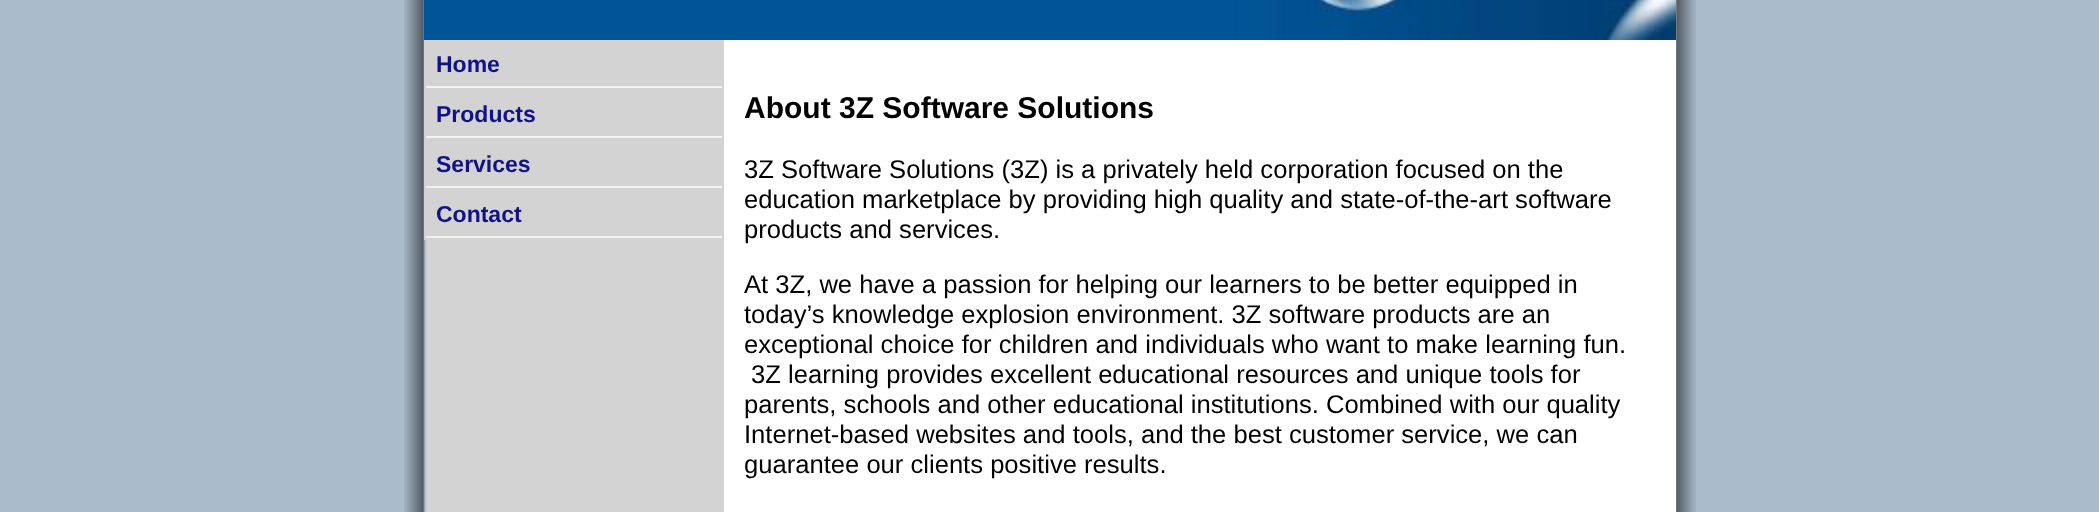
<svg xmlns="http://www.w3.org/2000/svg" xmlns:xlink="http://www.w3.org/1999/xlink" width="2099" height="512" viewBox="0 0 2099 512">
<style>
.cls-1{font:bold 23px Liberation Sans;fill:#111188}
.cls-2{font:bold 30px Liberation Sans;fill:#000000}
.cls-3{font:25.6px Liberation Sans;fill:#000000}
</style>
<rect width="100%" height="100%" fill="#aabbcc"/>
<image xlink:href="image0.png" x="404" y="0" width="1292" height="512"/>
<image xlink:href="image1.png" x="424" y="0" width="1252" height="40"/>
<rect fill="#d3d3d3" x="424" y="40" width="3" height="200"/>
<rect fill="#f2f2f2" x="426" y="86" width="296" height="2"/>
<rect fill="#f2f2f2" x="426" y="136" width="296" height="2"/>
<rect fill="#f2f2f2" x="426" y="186" width="296" height="2"/>
<rect fill="#f2f2f2" x="426" y="236" width="296" height="2"/>
<rect fill="#ffffff" x="724" y="40" width="952" height="472"/>
<text class="cls-1" x="436" y="72">Home</text>
<text class="cls-1" x="436" y="122">Products</text>
<text class="cls-1" x="436" y="172">Services</text>
<text class="cls-1" x="436" y="222">Contact</text>
<text class="cls-2" x="744" y="118">About 3Z Software Solutions</text>
<text class="cls-3"><tspan x="744" y="178">3Z Software Solutions (3Z) is a privately held corporation focused on the</tspan><tspan x="744" y="208">education marketplace by providing high quality and state-of-the-art software</tspan><tspan x="744" y="238">products and services.</tspan></text>
<text class="cls-3"><tspan x="744" y="293">At 3Z, we have a passion for helping our learners to be better equipped in</tspan><tspan x="744" y="323">today’s knowledge explosion environment. 3Z software products are an</tspan><tspan x="744" y="353">exceptional choice for children and individuals who want to make learning fun.</tspan></text>
<text class="cls-3" x="751" y="383">3Z learning provides excellent educational resources and unique tools for</text>
<text class="cls-3"><tspan x="744" y="413">parents, schools and other educational institutions. Combined with our quality</tspan><tspan x="744" y="443">Internet-based websites and tools, and the best customer service, we can</tspan><tspan x="744" y="473">guarantee our clients positive results.</tspan></text>
</svg>
